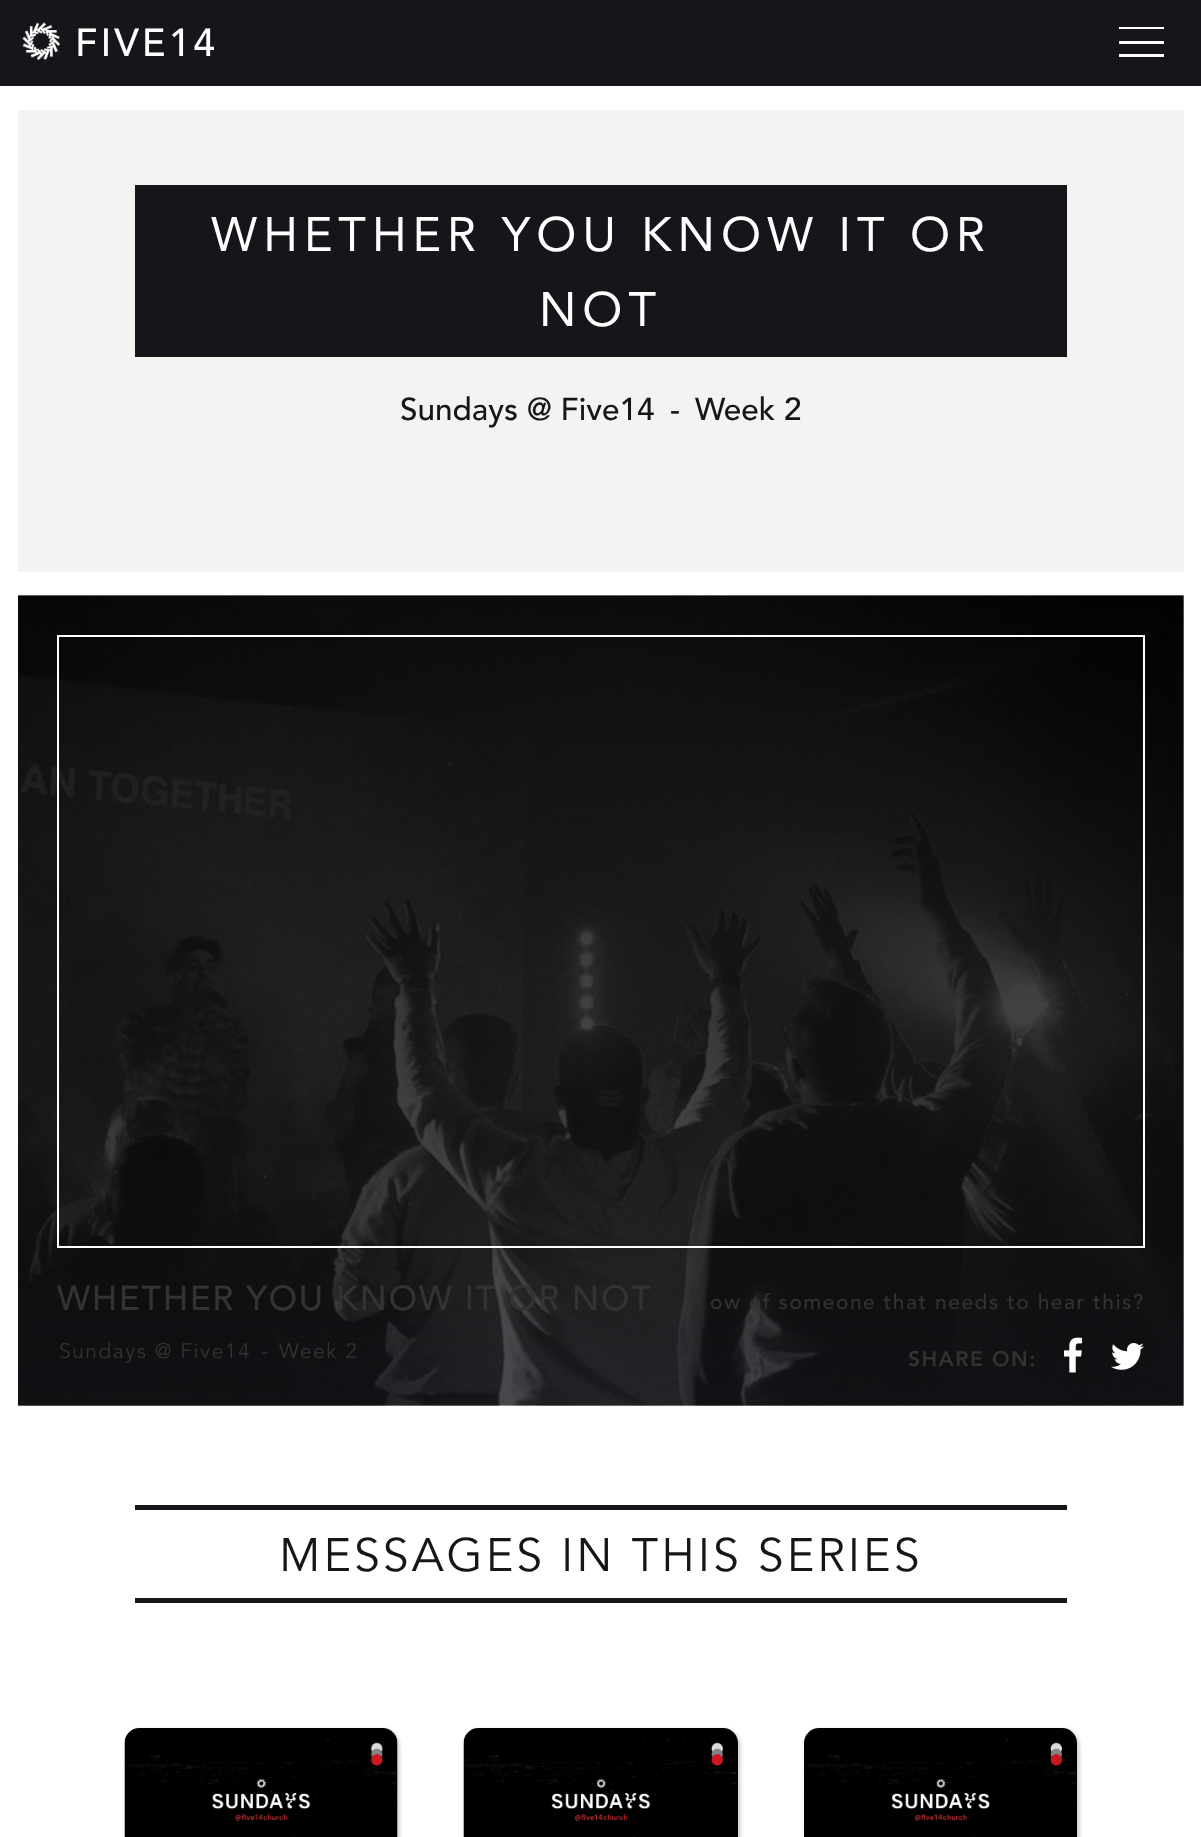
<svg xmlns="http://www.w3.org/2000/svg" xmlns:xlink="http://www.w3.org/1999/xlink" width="1201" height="1837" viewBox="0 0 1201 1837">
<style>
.cls-1{font:500 39px Avenir;letter-spacing:3px;fill:#ffffff}
.cls-2{font:48px Avenir;letter-spacing:6px;fill:#ffffff}
.cls-3{font:500 31.5px Avenir;fill:#15161a}
.cls-4{font:500 34.5px Avenir;letter-spacing:1.5px;fill:#333333}
.cls-5{font:21px 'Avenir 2';letter-spacing:1.5px;fill:#333333}
.cls-6{font:500 21px Avenir;letter-spacing:1.5px;fill:#333333}
.cls-7{font:900 21px Avenir;letter-spacing:1.5px;fill:#333333}
.cls-8{font:46.5px 'Avenir 2';letter-spacing:3px;fill:#15161a}
</style>
<rect width="100%" height="100%" fill="#ffffff"/>
<rect fill="#15161a" x="0" y="0" width="1201" height="86"/>
<image xlink:href="image0.png" x="22" y="22" width="38" height="38"/>
<rect fill="#ffffff" x="1119" y="27" width="45" height="2"/>
<rect fill="#ffffff" x="1119" y="41" width="45" height="3"/>
<rect fill="#ffffff" x="1119" y="54" width="45" height="3"/>
<rect fill="#f3f3f2" x="18" y="110" width="1166" height="462"/>
<rect fill="#15161a" x="135" y="185" width="932" height="172"/>
<image xlink:href="image1.png" x="18" y="595" width="1166" height="811"/>
<rect fill="none" stroke="#ffffff" stroke-width="2" x="58" y="636" width="1086" height="611"/>
<image xlink:href="image2.png" x="1064" y="1337" width="19" height="36"/>
<image xlink:href="image3.png" x="1111" y="1343" width="33" height="27"/>
<rect fill="#15161a" x="135" y="1505" width="932" height="5"/>
<rect fill="#15161a" x="135" y="1598" width="932" height="5"/>
<rect fill="#000000" fill-opacity="0.22" filter="blur(2px)" x="126" y="1730" width="273" height="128" rx="15"/>
<image xlink:href="image4.png" x="124" y="1728" width="274" height="109"/>
<rect fill="#000000" fill-opacity="0.22" filter="blur(2px)" x="465" y="1730" width="275" height="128" rx="15"/>
<image xlink:href="image5.png" x="463" y="1728" width="275" height="109"/>
<rect fill="#000000" fill-opacity="0.22" filter="blur(2px)" x="806" y="1730" width="273" height="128" rx="15"/>
<image xlink:href="image6.png" x="804" y="1728" width="273" height="109"/>
<text class="cls-1" x="75" y="56">FIVE14</text>
<text class="cls-2" x="211" y="251">WHETHER YOU KNOW IT OR</text>
<text class="cls-2" x="539" y="326">NOT</text>
<text class="cls-3" x="400" y="420">Sundays @ Five14</text>
<text class="cls-3" x="670" y="420">-</text>
<text class="cls-3" x="695" y="420">Week 2</text>
<text class="cls-4" x="57" y="1310">WHETHER YOU KNOW IT OR NOT</text>
<text class="cls-5" x="59" y="1358">Sundays @ Five14</text>
<text class="cls-5" x="261" y="1358">-</text>
<text class="cls-5" x="279" y="1358">Week 2</text>
<text class="cls-6" x="710" y="1309">ow of someone that needs to hear this?</text>
<text class="cls-7" x="908" y="1366">SHARE ON:</text>
<text class="cls-8" x="279" y="1571">MESSAGES IN THIS SERIES</text>
</svg>
